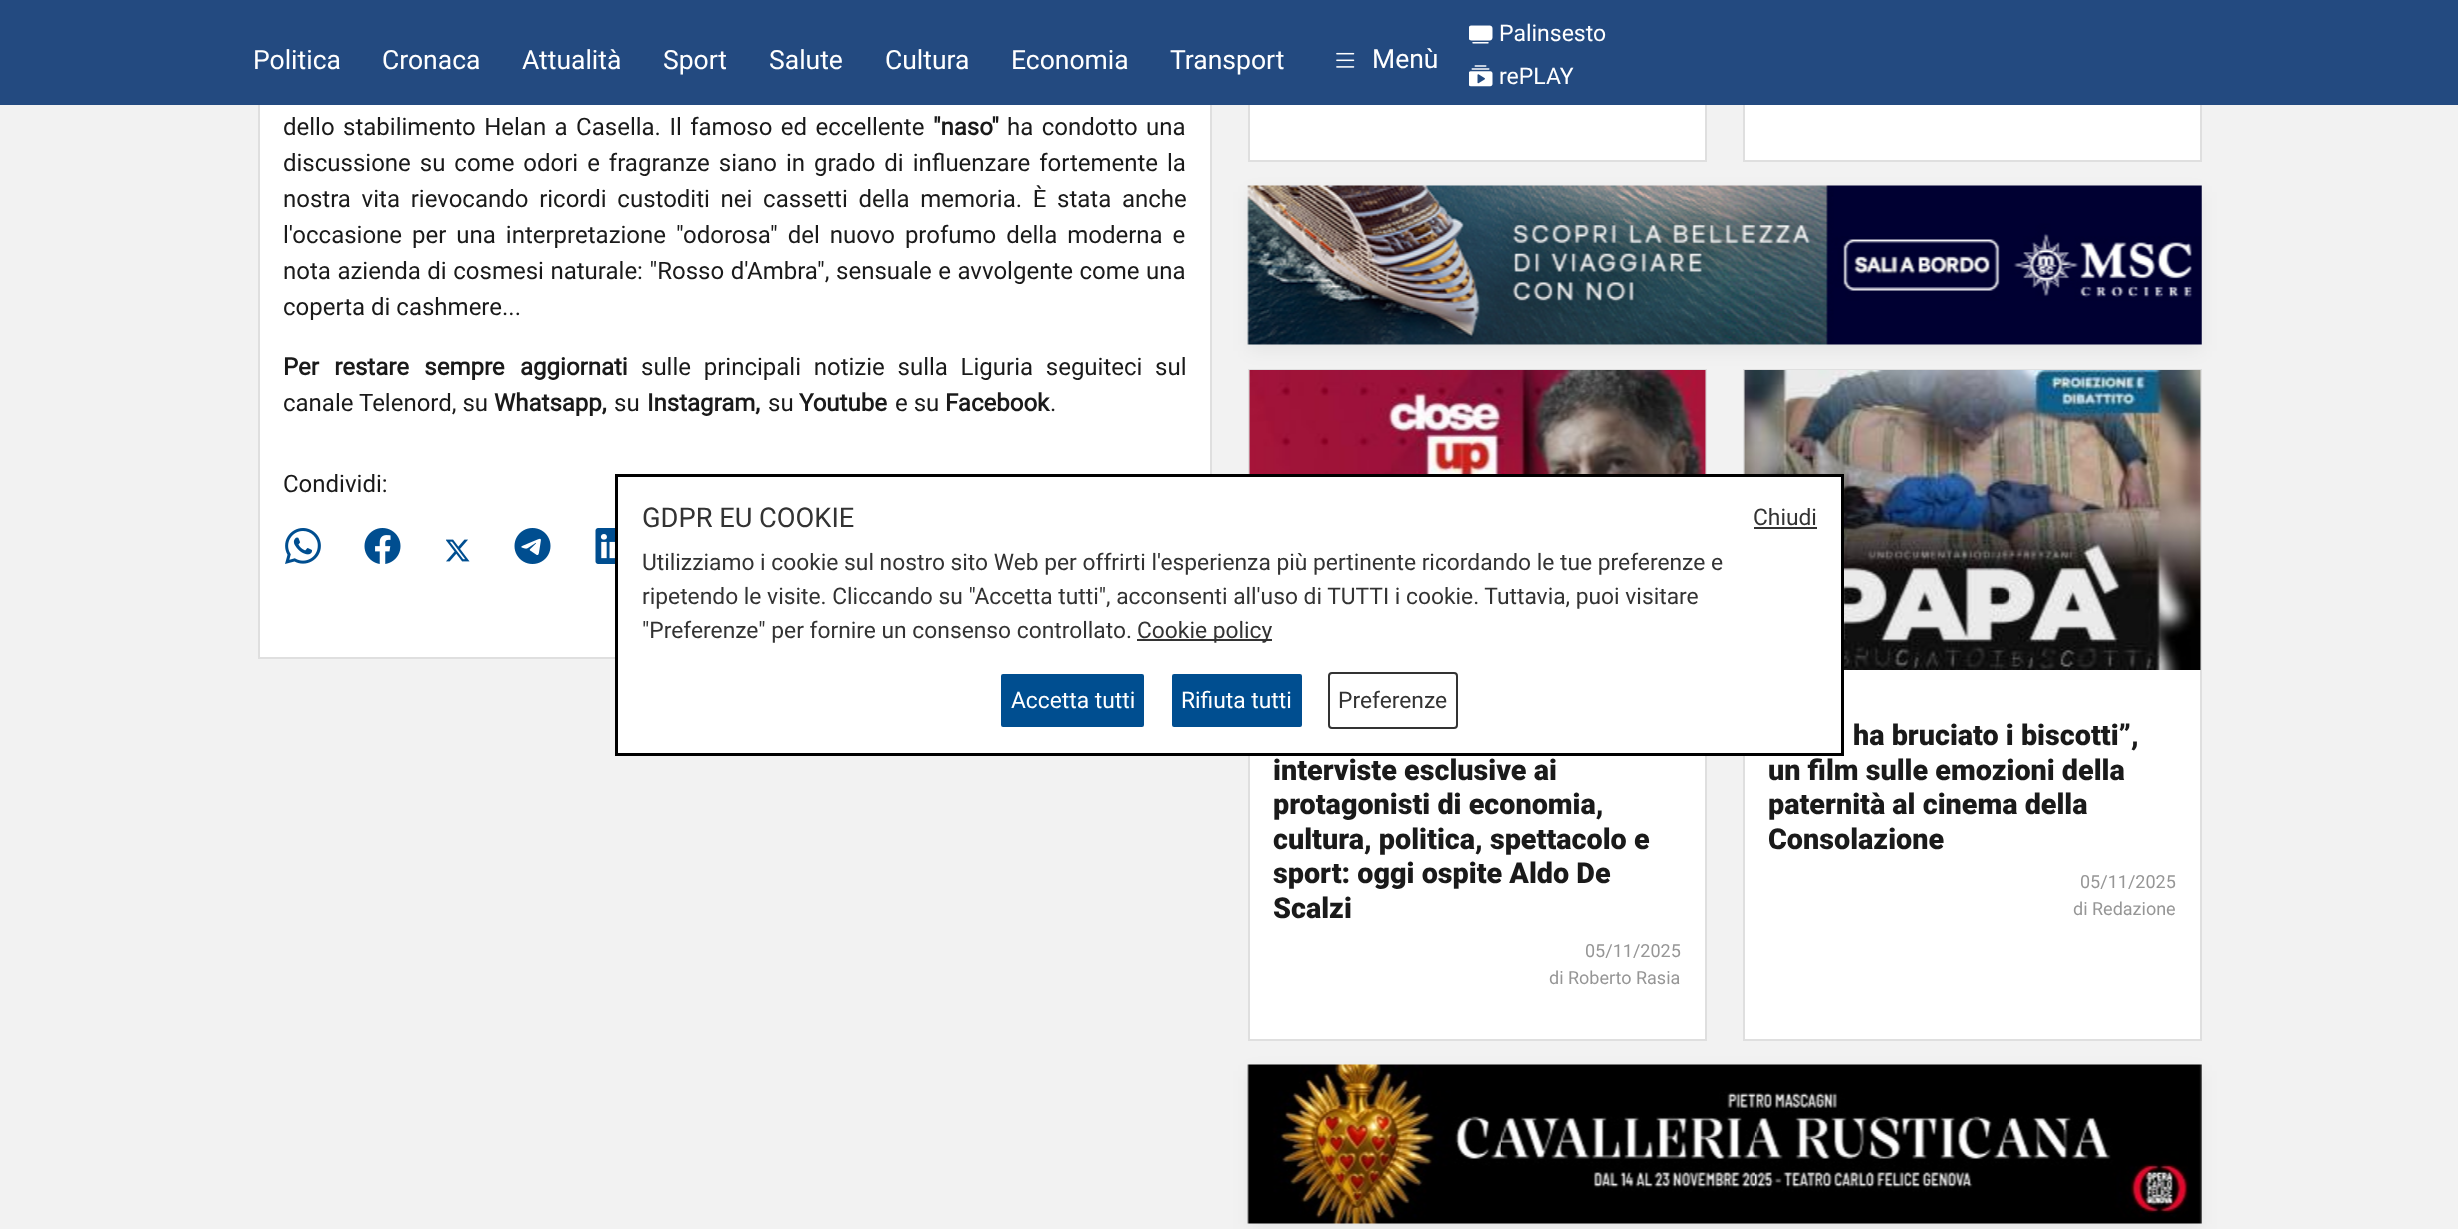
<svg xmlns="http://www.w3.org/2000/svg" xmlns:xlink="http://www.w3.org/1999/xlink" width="2458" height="1229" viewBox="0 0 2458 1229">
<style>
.cls-1{font:26.5px Roboto;fill:#ffffff}
.cls-2{font:23px Roboto;fill:#ffffff}
.cls-3{font:24px Roboto;fill:#1a1a1a}
.cls-4{font:bold 24px Roboto;fill:#1a1a1a}
.cls-5{font:900 28.75px Roboto;fill:#1a1a1a}
.cls-6{font:18px Roboto;fill:#969696}
.cls-7{font:27.25px Roboto;fill:#333333}
.cls-8{font:22.8px Roboto;fill:#333333}
.cls-9{font:22.8px Roboto;fill:#ffffff}
</style>
<rect width="100%" height="100%" fill="#f2f2f2"/>
<rect fill="#ffffff" x="260" y="105" width="950" height="552"/>
<rect fill="none" stroke="#dfdfdf" stroke-width="2" x="259" y="-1" width="952" height="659"/>
<rect fill="#ffffff" x="1250" y="105" width="455" height="55"/>
<rect fill="none" stroke="#dfdfdf" stroke-width="2" x="1249" y="-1" width="457" height="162"/>
<rect fill="#ffffff" x="1745" y="105" width="455" height="55"/>
<rect fill="none" stroke="#dfdfdf" stroke-width="2" x="1744" y="-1" width="457" height="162"/>
<rect fill="#234a80" x="0" y="0" width="2458" height="105"/>
<image xlink:href="image0.png" x="1336" y="52" width="19" height="16"/>
<image xlink:href="image1.png" x="1469" y="25" width="24" height="19"/>
<image xlink:href="image2.png" x="1469" y="65" width="24" height="22"/>
<image xlink:href="image3.png" x="285" y="528" width="36" height="36"/>
<image xlink:href="image4.png" x="364" y="528" width="37" height="36"/>
<image xlink:href="image5.png" x="446" y="539" width="24" height="23"/>
<image xlink:href="image6.png" x="514" y="528" width="37" height="36"/>
<image xlink:href="image7.png" x="595" y="528" width="20" height="36"/>
<rect fill="#000000" fill-opacity="0.05" filter="blur(9px)" x="1248" y="192" width="954" height="159"/>
<image xlink:href="image8.png" x="1247" y="185" width="955" height="160"/>
<rect fill="#ffffff" x="1250" y="756" width="455" height="283"/>
<rect fill="none" stroke="#dfdfdf" stroke-width="2" x="1249" y="370" width="457" height="670"/>
<image xlink:href="image9.png" x="1249" y="370" width="457" height="104"/>
<rect fill="#ffffff" x="1745" y="670" width="455" height="369"/>
<rect fill="none" stroke="#dfdfdf" stroke-width="2" x="1744" y="370" width="457" height="670"/>
<image xlink:href="image10.png" x="1744" y="370" width="457" height="300"/>
<rect fill="#000000" fill-opacity="0.05" filter="blur(9px)" x="1248" y="1071" width="954" height="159"/>
<image xlink:href="image11.png" x="1247" y="1064" width="955" height="160"/>
<rect fill="#ffffff" stroke="#000000" stroke-width="3" x="616.5" y="475.5" width="1226" height="279"/>
<rect fill="#333333" x="1754" y="527" width="63" height="2"/>
<rect fill="#333333" x="1137" y="639" width="135" height="2"/>
<rect fill="#004e90" stroke="#ffffff" stroke-width="2" x="1000" y="673" width="145" height="55" rx="3"/>
<rect fill="#004e90" stroke="#ffffff" stroke-width="2" x="1171" y="673" width="132" height="55" rx="3"/>
<rect fill="none" stroke="#333333" stroke-width="2" x="1329" y="673" width="128" height="55" rx="3"/>
<text class="cls-1" x="253" y="69">Politica</text>
<text class="cls-1" x="382" y="69">Cronaca</text>
<text class="cls-1" x="522" y="69">Attualità</text>
<text class="cls-1" x="663" y="69">Sport</text>
<text class="cls-1" x="769" y="69">Salute</text>
<text class="cls-1" x="885" y="69">Cultura</text>
<text class="cls-1" x="1011" y="69">Economia</text>
<text class="cls-1" x="1170" y="69">Transport</text>
<text class="cls-1" x="1372" y="68">Menù</text>
<text class="cls-2"><tspan x="1499" y="41">Palinsesto</tspan><tspan x="1499" y="84">rePLAY</tspan></text>
<text class="cls-3" x="283" y="135" word-spacing="2.5">dello stabilimento Helan a Casella. Il famoso ed eccellente</text>
<text class="cls-4" x="933" y="135">"naso"</text>
<text class="cls-3" x="1007" y="135" word-spacing="2.5">ha condotto una</text>
<text class="cls-3"><tspan x="283" y="171" word-spacing="3">discussione su come odori e fragranze siano in grado di influenzare fortemente la</tspan><tspan x="283" y="207" word-spacing="4.75">nostra vita rievocando ricordi custoditi nei cassetti della memoria. È stata anche</tspan><tspan x="283" y="243" word-spacing="4">l'occasione per una interpretazione "odorosa" del nuovo profumo della moderna e</tspan><tspan x="283" y="279" word-spacing="0.6">nota azienda di cosmesi naturale: "Rosso d'Ambra", sensuale e avvolgente come una</tspan><tspan x="283" y="315">coperta di cashmere...</tspan></text>
<text class="cls-4" x="283" y="375" word-spacing="9.5">Per restare sempre aggiornati</text>
<text class="cls-3" x="641" y="375" word-spacing="6.75">sulle principali notizie sulla Liguria seguiteci sul</text>
<text class="cls-3" x="283" y="411">canale Telenord, su</text>
<text class="cls-4" x="494" y="411">Whatsapp,</text>
<text class="cls-3" x="614" y="411">su</text>
<text class="cls-4" x="647" y="411">Instagram,</text>
<text class="cls-3" x="768" y="411">su</text>
<text class="cls-4" x="799" y="411">Youtube</text>
<text class="cls-3" x="895" y="411">e su</text>
<text class="cls-4" x="945" y="411">Facebook</text>
<text class="cls-3" x="1050" y="411">.</text>
<text class="cls-3" x="283" y="492">Condividi:</text>
<text class="cls-5"><tspan x="1273" y="780">interviste esclusive ai</tspan><tspan x="1273" y="814">protagonisti di economia,</tspan><tspan x="1273" y="849">cultura, politica, spettacolo e</tspan><tspan x="1273" y="883">sport: oggi ospite Aldo De</tspan><tspan x="1273" y="918">Scalzi</tspan></text>
<text class="cls-6" x="1585" y="957">05/11/2025</text>
<text class="cls-6" x="1549" y="984">di Roberto Rasia</text>
<text class="cls-5" x="1853" y="745">ha bruciato i biscotti”,</text>
<text class="cls-5"><tspan x="1768" y="780">un film sulle emozioni della</tspan><tspan x="1768" y="814">paternità al cinema della</tspan><tspan x="1768" y="849">Consolazione</tspan></text>
<text class="cls-6" x="2080" y="888">05/11/2025</text>
<text class="cls-6" x="2073" y="915">di Redazione</text>
<text class="cls-7" x="642" y="527">GDPR EU COOKIE</text>
<text class="cls-8" x="1753" y="525">Chiudi</text>
<text class="cls-8"><tspan x="642" y="570">Utilizziamo i cookie sul nostro sito Web per offrirti l'esperienza più pertinente ricordando le tue preferenze e</tspan><tspan x="642" y="604">ripetendo le visite. Cliccando su "Accetta tutti", acconsenti all'uso di TUTTI i cookie. Tuttavia, puoi visitare</tspan><tspan x="642" y="638">"Preferenze" per fornire un consenso controllato.</tspan></text>
<text class="cls-8" x="1137" y="638">Cookie policy</text>
<text class="cls-9" x="1011" y="708">Accetta tutti</text>
<text class="cls-9" x="1181" y="708">Rifiuta tutti</text>
<text class="cls-8" x="1338" y="708">Preferenze</text>
</svg>
